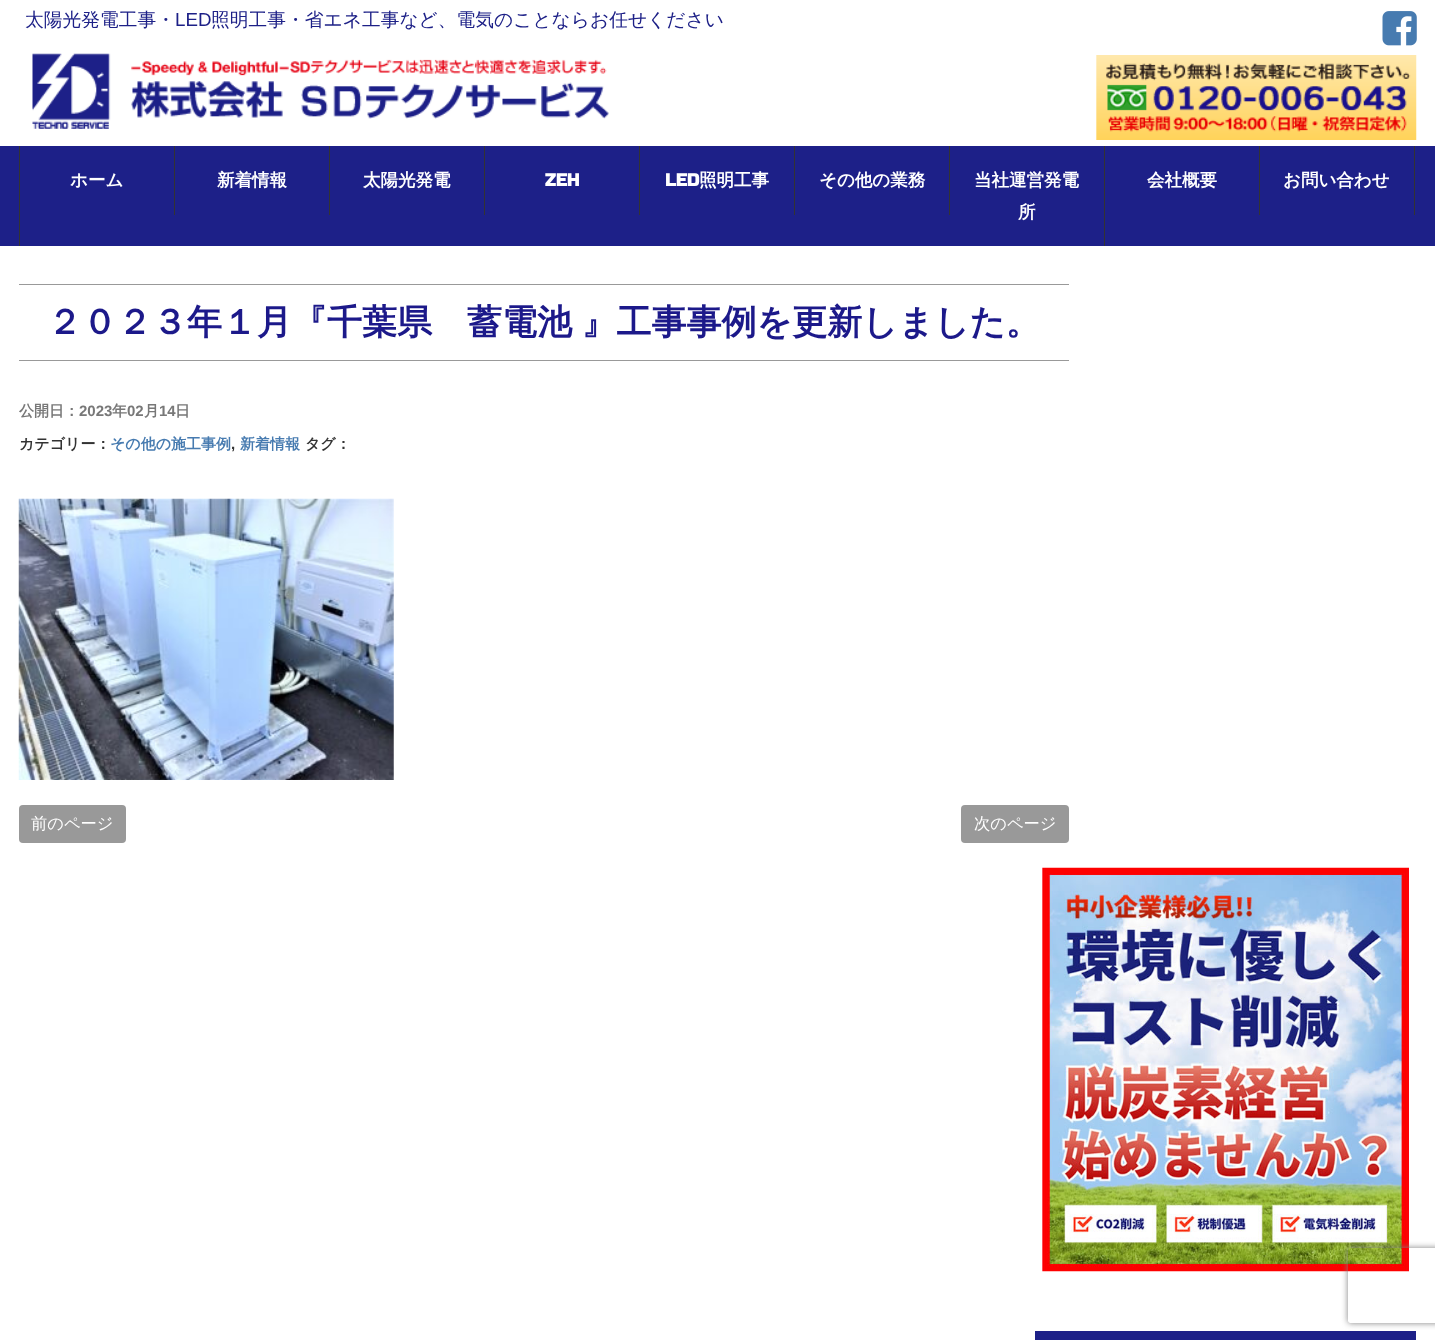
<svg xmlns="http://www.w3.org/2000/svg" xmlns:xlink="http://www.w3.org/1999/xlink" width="1435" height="1340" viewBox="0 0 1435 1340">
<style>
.cls-1{font:500 18.75px WenQuanYi Zen Hei;fill:#1d2087}
.cls-2{font:18.75px Liberation Sans;fill:#1d2087}
.cls-3{font:bold 17.5px WenQuanYi Zen Hei;fill:#ffffff}
.cls-4{font:bold 17.5px Russo One;fill:#ffffff}
.cls-5{font:bold 35px WenQuanYi Zen Hei;fill:#1c198a}
.cls-6{font:bold 15px WenQuanYi Zen Hei;fill:#787878}
.cls-7{font:bold 15px Liberation Sans;fill:#787878}
.cls-8{font:bold 15px WenQuanYi Zen Hei;fill:#333333}
.cls-9{font:bold 15px WenQuanYi Zen Hei;fill:#477bb0}
.cls-10{font:bold 15px Liberation Sans;fill:#333333}
.cls-11{font:500 16.25px WenQuanYi Zen Hei;fill:#ffffff}
</style>
<defs>
<clipPath id="clip1"><path d="M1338 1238H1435V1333H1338ZM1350.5 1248H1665.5C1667 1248 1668 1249 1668 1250.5V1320.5C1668 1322 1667 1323 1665.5 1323H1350.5C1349 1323 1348 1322 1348 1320.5V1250.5C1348 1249 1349 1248 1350.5 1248Z" clip-rule="evenodd"/></clipPath>
</defs>
<rect width="100%" height="100%" fill="#ffffff"/>
<image xlink:href="image0.png" x="32" y="53" width="577" height="76"/>
<image xlink:href="image1.png" x="1382" y="11" width="35" height="35"/>
<image xlink:href="image2.png" x="1096" y="55" width="321" height="85"/>
<rect fill="#1d2088" x="0" y="146" width="1435" height="100"/>
<rect fill="#333333" x="19" y="146" width="1" height="100"/>
<rect fill="#333333" x="174" y="146" width="1" height="69"/>
<rect fill="#333333" x="329" y="146" width="1" height="69"/>
<rect fill="#333333" x="484" y="146" width="1" height="69"/>
<rect fill="#333333" x="639" y="146" width="1" height="69"/>
<rect fill="#333333" x="794" y="146" width="1" height="69"/>
<rect fill="#333333" x="949" y="146" width="1" height="69"/>
<rect fill="#333333" x="1104" y="146" width="1" height="100"/>
<rect fill="#333333" x="1259" y="146" width="1" height="69"/>
<rect fill="#333333" x="1414" y="146" width="1" height="69"/>
<rect fill="#999999" x="19" y="284" width="1050" height="1"/>
<rect fill="#999999" x="19" y="360" width="1050" height="1"/>
<image xlink:href="image3.png" x="18" y="498" width="376" height="282"/>
<rect fill="#999999" x="19" y="805" width="107" height="38" rx="4"/>
<rect fill="#999999" x="961" y="805" width="108" height="38" rx="4"/>
<image xlink:href="image4.png" x="1042" y="867" width="367" height="405"/>
<rect fill="#1d2088" x="1035" y="1331" width="381" height="9"/>
<g clip-path="url(#clip1)">
<rect fill="#808080" filter="blur(3px)" x="1348" y="1248" width="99" height="75" rx="2.5"/>
</g>
<text class="cls-1" x="25" y="26">太陽光発電工事・</text>
<text class="cls-2" x="175" y="26">LED</text>
<text class="cls-1" x="211" y="26">照明工事・省エネ工事など、電気のことならお任せください</text>
<text class="cls-3" x="70" y="186">ホーム</text>
<text class="cls-3" x="217" y="186">新着情報</text>
<text class="cls-3" x="363" y="186">太陽光発電</text>
<text class="cls-4" x="545" y="186">ZEH</text>
<text class="cls-4" x="665" y="186">LED</text>
<text class="cls-3" x="699" y="186">照明工事</text>
<text class="cls-3" x="819" y="186">その他の業務</text>
<text class="cls-3" x="974" y="186">当社運営発電</text>
<text class="cls-3" x="1018" y="218">所</text>
<text class="cls-3" x="1147" y="186">会社概要</text>
<text class="cls-3" x="1283" y="186">お問い合わせ</text>
<text class="cls-5" x="47" y="334" word-spacing="-1">２０２３年１月『千葉県　蓄電池 』工事事例を更新しました。</text>
<text class="cls-6" x="19" y="416">公開日：</text>
<text class="cls-7" x="79" y="416">2023</text>
<text class="cls-6" x="112" y="416">年</text>
<text class="cls-7" x="127" y="416">02</text>
<text class="cls-6" x="144" y="416">月</text>
<text class="cls-7" x="159" y="416">14</text>
<text class="cls-6" x="175" y="416">日</text>
<text class="cls-8" x="19" y="449">カテゴリー：</text>
<text class="cls-9" x="110" y="449">その他の施工事例</text>
<text class="cls-10" x="231" y="449">,</text>
<text class="cls-9" x="240" y="449">新着情報</text>
<text class="cls-8" x="305" y="449">タグ：</text>
<text class="cls-11" x="31" y="829">前のページ</text>
<text class="cls-11" x="974" y="829">次のページ</text>
</svg>
